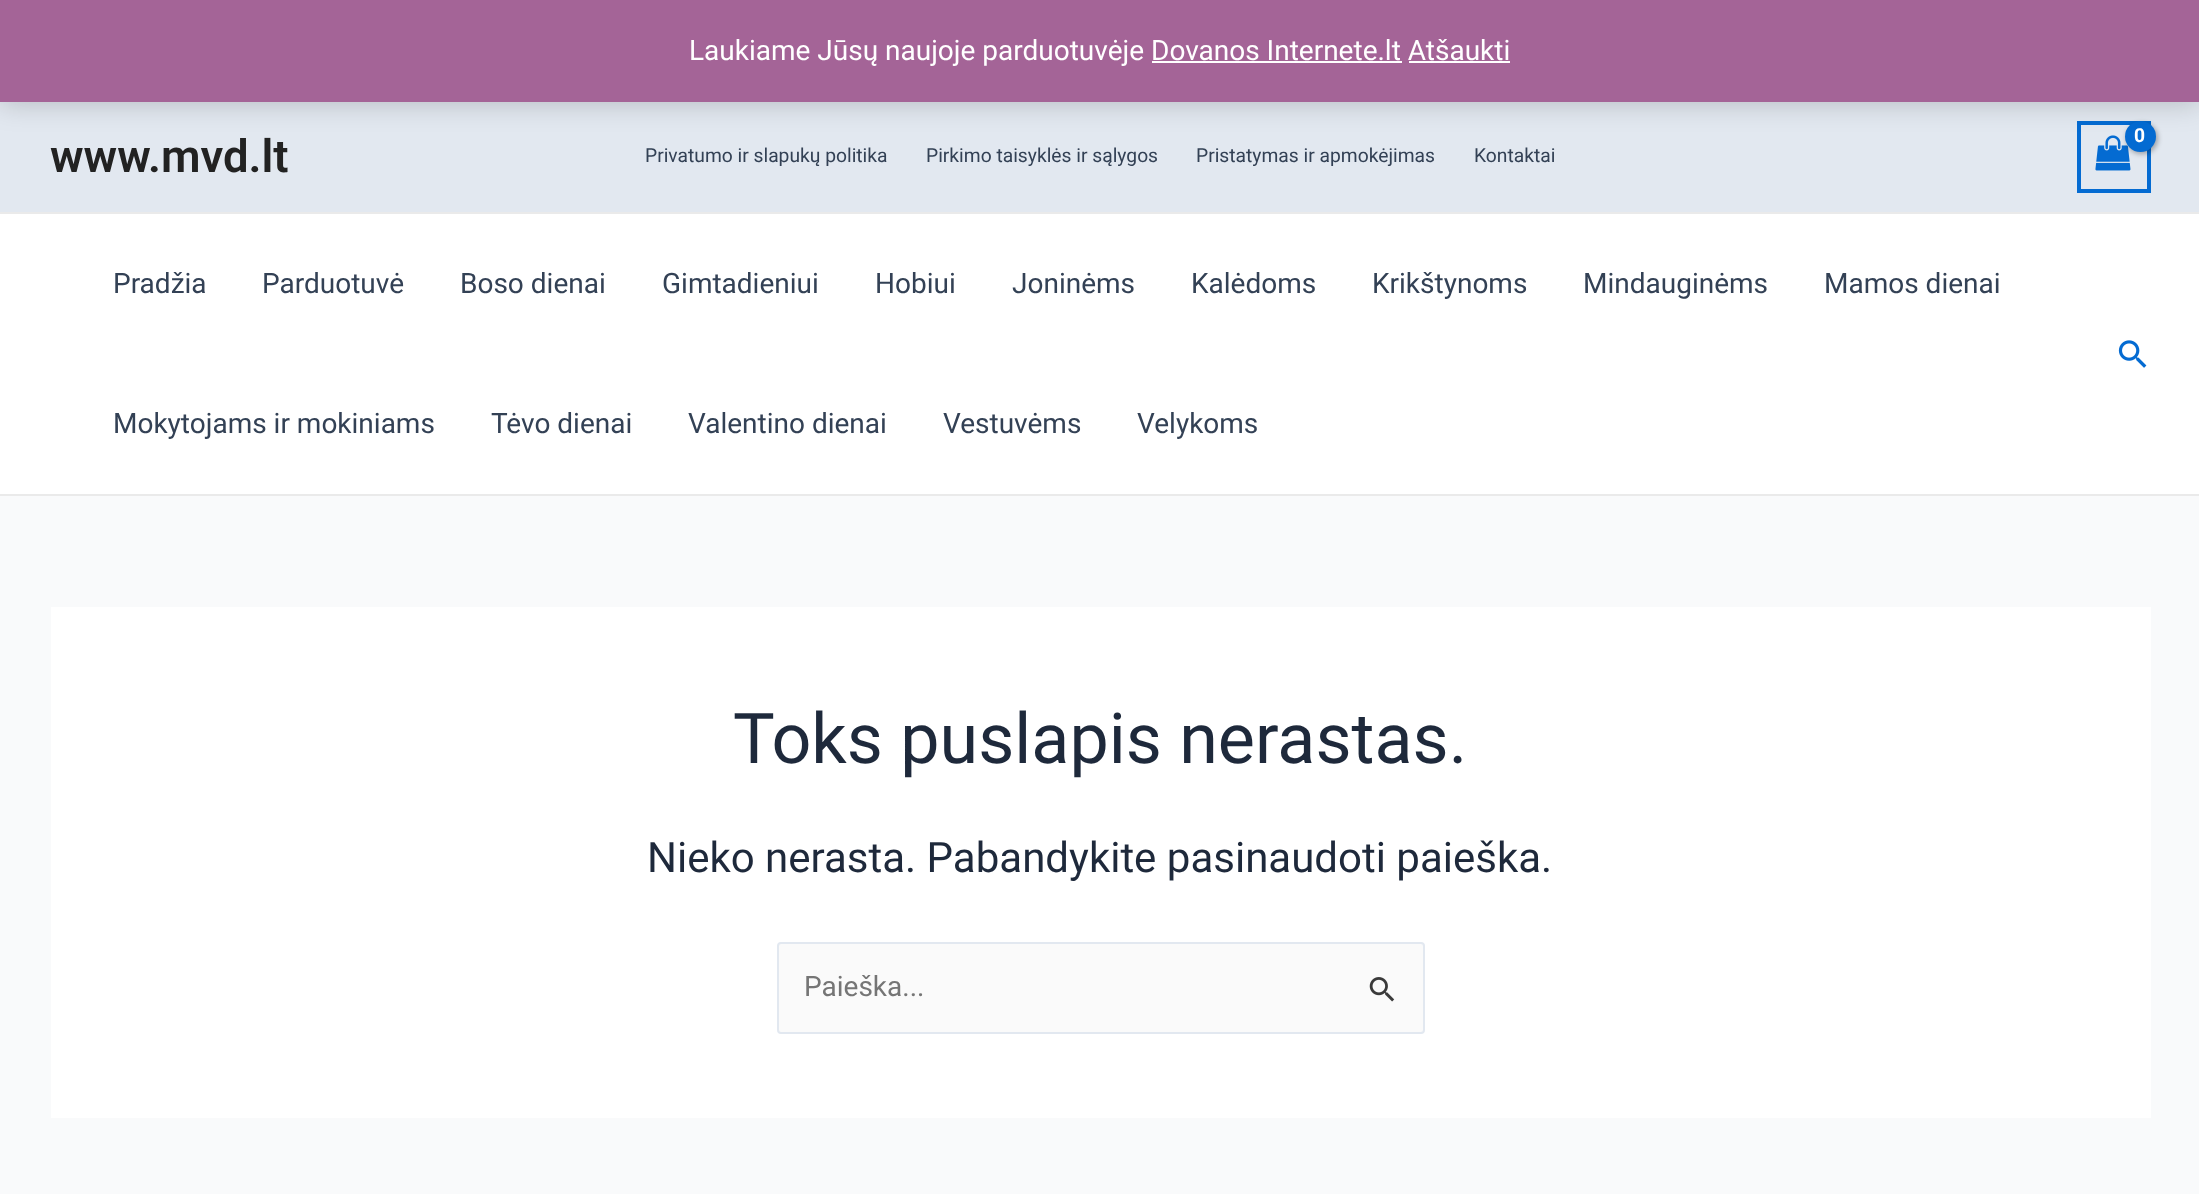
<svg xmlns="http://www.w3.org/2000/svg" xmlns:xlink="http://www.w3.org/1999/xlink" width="2199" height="1194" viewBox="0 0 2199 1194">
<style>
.cls-1{font:28px Roboto;fill:#ffffff}
.cls-2{font:bold 19.25px Roboto;letter-spacing:-1px;fill:#ffffff}
.cls-3{font:600 45.5px Roboto;fill:#222222}
.cls-4{font:19.25px Roboto;fill:#334155}
.cls-5{font:28px Roboto;fill:#334155}
.cls-6{font:70px Roboto;fill:#1e293b}
.cls-7{font:42px Roboto;fill:#1e293b}
.cls-8{font:28px Roboto;fill:#757575}
</style>
<rect width="100%" height="100%" fill="#f9fafb"/>
<rect fill="#e2e8f0" x="0" y="102" width="2199" height="110"/>
<rect fill="none" stroke="#046bd2" stroke-width="4" x="2079" y="123" width="70" height="68"/>
<image xlink:href="image0.png" x="2095" y="135" width="36" height="36"/>
<rect fill="#000000" fill-opacity="0.3" filter="blur(2.5px)" x="2126" y="123" width="32" height="31" rx="15.5"/>
<circle fill="#046bd2" cx="2140.5" cy="136.5" r="15.5"/>
<rect fill="#000000" fill-opacity="0.2" filter="blur(14px)" x="0" y="2" width="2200" height="101"/>
<rect fill="#a46497" x="0" y="0" width="2199" height="102"/>
<rect fill="#ffffff" x="1152" y="61" width="250" height="2"/>
<rect fill="#ffffff" x="1409" y="61" width="101" height="2"/>
<rect fill="#eaeaea" x="0" y="212" width="2199" height="2"/>
<rect fill="#ffffff" x="0" y="214" width="2199" height="280"/>
<rect fill="#eaeaea" x="0" y="494" width="2199" height="2"/>
<image xlink:href="image1.png" x="2118" y="340" width="29" height="28"/>
<rect fill="#ffffff" x="51" y="607" width="2100" height="511"/>
<rect fill="#fafafa" stroke="#e2e8f0" stroke-width="2" x="778" y="943" width="646" height="90" rx="3"/>
<image xlink:href="image2.png" x="1369" y="977" width="26" height="25"/>
<text class="cls-1" x="689" y="60">Laukiame Jūsų naujoje parduotuvėje Dovanos Internete.lt Atšaukti</text>
<text class="cls-2" x="2134" y="142">0</text>
<text class="cls-3" x="50" y="172">www.mvd.lt</text>
<text class="cls-4" x="645" y="162">Privatumo ir slapukų politika</text>
<text class="cls-4" x="926" y="162">Pirkimo taisyklės ir sąlygos</text>
<text class="cls-4" x="1196" y="162">Pristatymas ir apmokėjimas</text>
<text class="cls-4" x="1474" y="162">Kontaktai</text>
<text class="cls-5" x="113" y="293">Pradžia</text>
<text class="cls-5" x="262" y="293">Parduotuvė</text>
<text class="cls-5" x="460" y="293">Boso dienai</text>
<text class="cls-5" x="662" y="293">Gimtadieniui</text>
<text class="cls-5" x="875" y="293">Hobiui</text>
<text class="cls-5" x="1012" y="293">Joninėms</text>
<text class="cls-5" x="1191" y="293">Kalėdoms</text>
<text class="cls-5" x="1372" y="293">Krikštynoms</text>
<text class="cls-5" x="1583" y="293">Mindauginėms</text>
<text class="cls-5" x="1824" y="293">Mamos dienai</text>
<text class="cls-5" x="113" y="433">Mokytojams ir mokiniams</text>
<text class="cls-5" x="491" y="433">Tėvo dienai</text>
<text class="cls-5" x="688" y="433">Valentino dienai</text>
<text class="cls-5" x="943" y="433">Vestuvėms</text>
<text class="cls-5" x="1137" y="433">Velykoms</text>
<text class="cls-6" x="733" y="763">Toks puslapis nerastas.</text>
<text class="cls-7" x="647" y="872">Nieko nerasta. Pabandykite pasinaudoti paieška.</text>
<text class="cls-8" x="804" y="996">Paieška...</text>
</svg>
